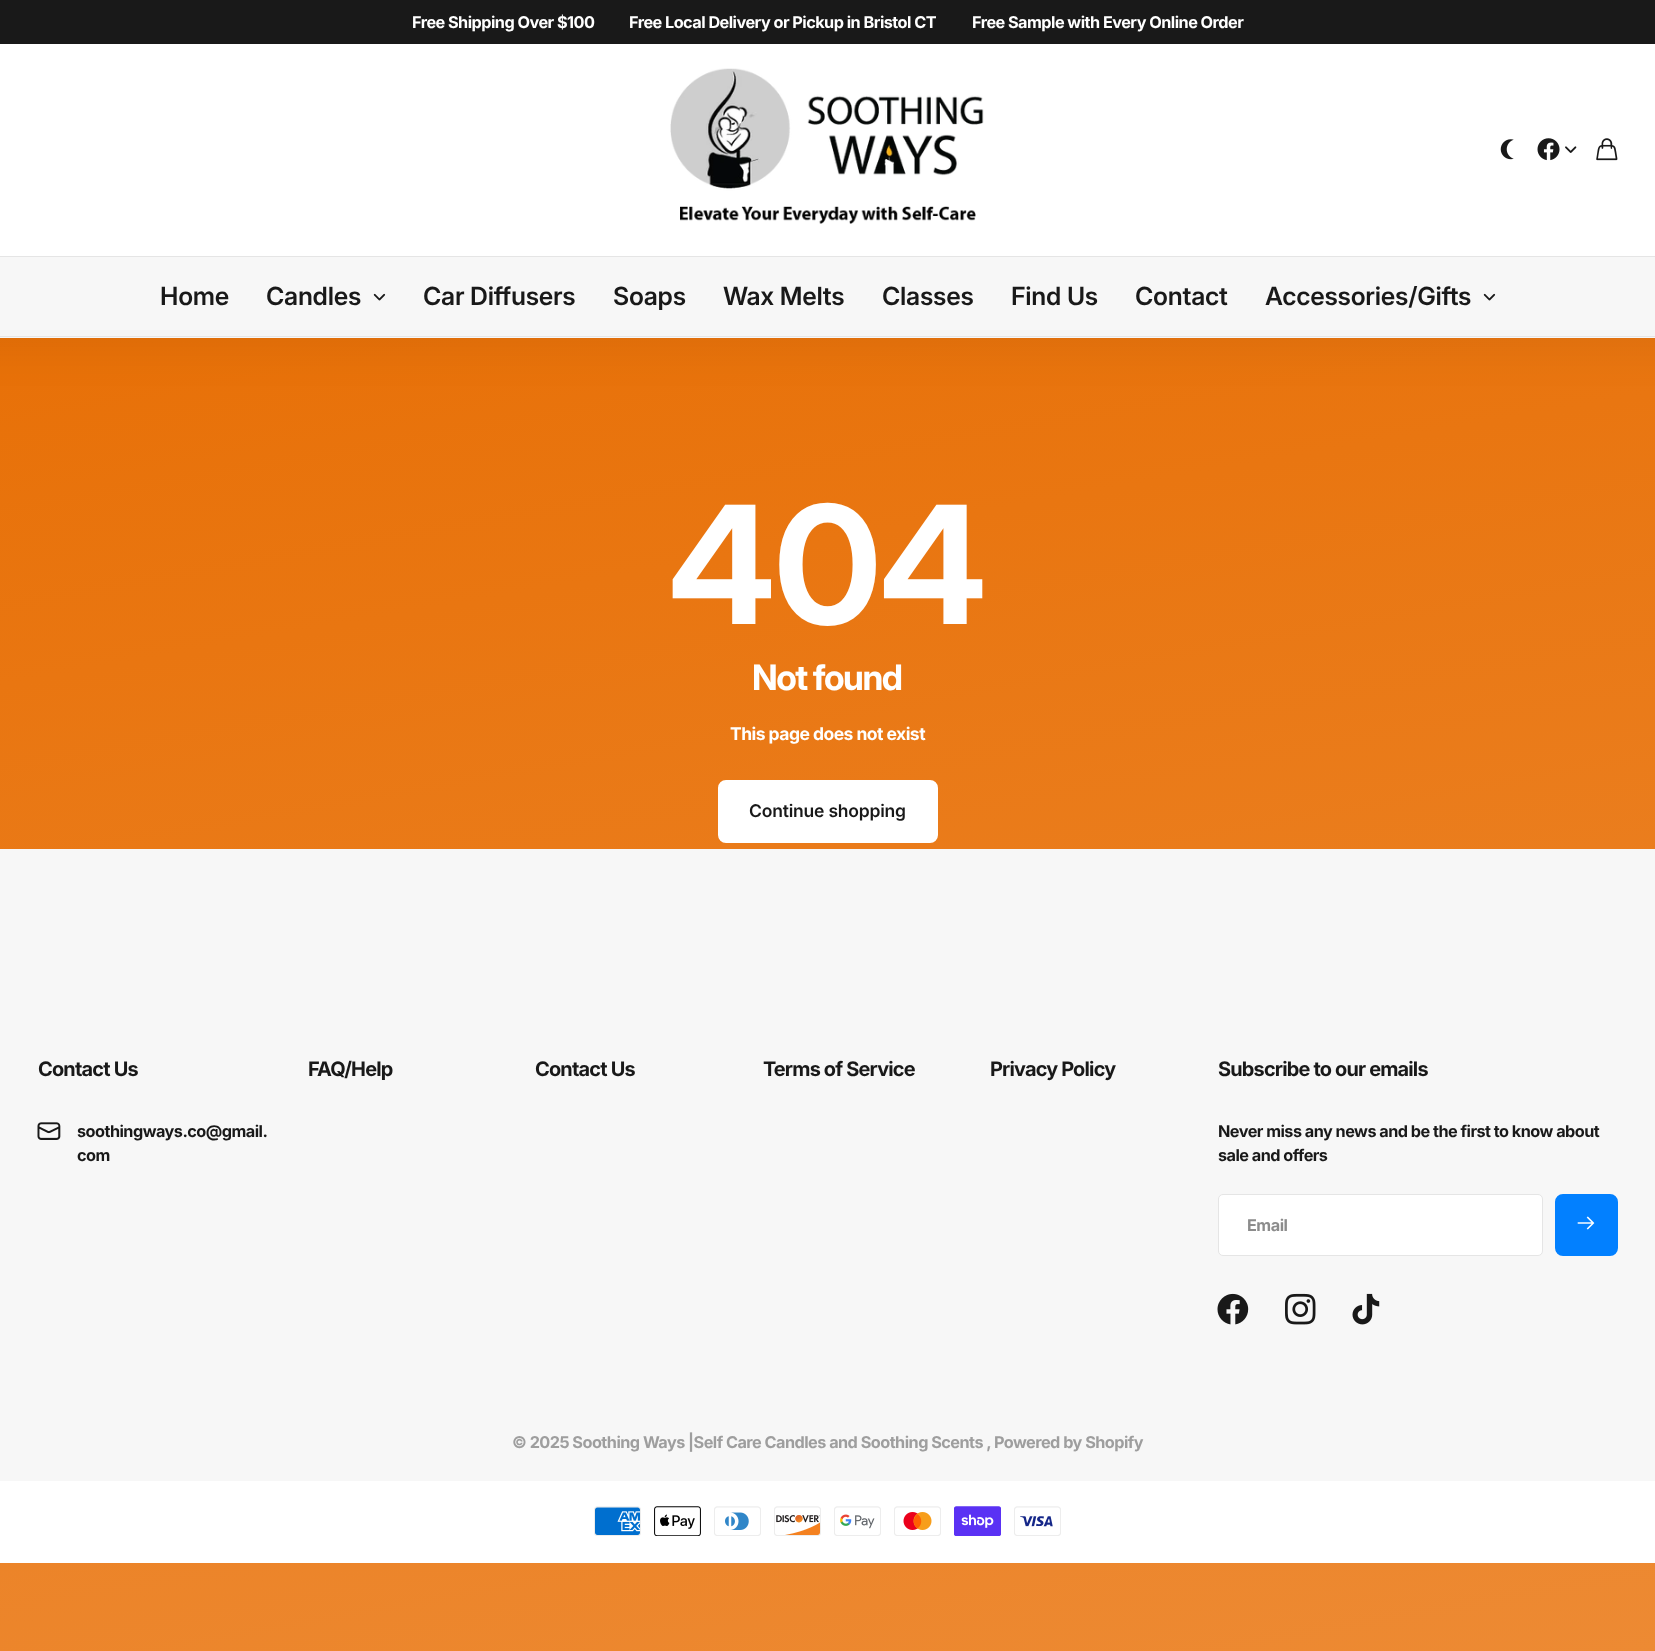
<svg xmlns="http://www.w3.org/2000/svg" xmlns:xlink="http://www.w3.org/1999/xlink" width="1655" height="1651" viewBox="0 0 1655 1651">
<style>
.cls-1{font:bold 16.25px Inter;letter-spacing:-0.53px;fill:#ffffff}
.cls-2{font:600 25px 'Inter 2';letter-spacing:-0.25px;fill:#191919}
.cls-3{font:bold 164px 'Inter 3';letter-spacing:-1.5px;fill:#ffffff}
.cls-4{font:bold 35px 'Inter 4';letter-spacing:-1.5px;fill:#ffffff}
.cls-5{font:bold 17.5px Inter;letter-spacing:-0.53px;fill:#ffffff}
.cls-6{font:600 17.5px Inter;letter-spacing:-0.2px;fill:#191919}
.cls-7{font:bold 20px 'Inter 2';letter-spacing:-0.8px;fill:#191919}
.cls-8{font:bold 16.25px Inter;letter-spacing:-0.53px;fill:#191919}
.cls-9{font:bold 16.25px Inter;letter-spacing:-0.5px;fill:#8c8c8c}
.cls-10{font:bold 16.25px Inter;letter-spacing:-0.53px;fill:#9e9e9e}
</style>
<defs>
<linearGradient id="g1" gradientUnits="userSpaceOnUse" x1="661" y1="-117" x2="994" y2="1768"><stop offset="0.03" stop-color="#e76c00"/><stop offset="1" stop-color="#ed8a33"/></linearGradient>
<clipPath id="clip1"><rect x="630" y="9" width="306" height="26"/></clipPath>
</defs>
<rect width="100%" height="100%" fill="#ffffff"/>
<rect fill="url(#g1)" x="0" y="338" width="1655" height="1313"/>
<rect fill="#000000" fill-opacity="0.06" filter="blur(25px)" x="-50" y="5" width="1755" height="338"/>
<rect fill="#ffffff" x="0" y="44" width="1655" height="212"/>
<rect fill="#191919" x="0" y="0" width="1655" height="44"/>
<image xlink:href="image0.png" x="670" y="68" width="314" height="156"/>
<image xlink:href="image1.png" x="1500" y="139" width="14" height="21"/>
<image xlink:href="image2.png" x="1537" y="138" width="23" height="23"/>
<image xlink:href="image3.png" x="1565" y="146" width="12" height="7"/>
<image xlink:href="image4.png" x="1596" y="138" width="22" height="23"/>
<rect fill="#e5e5e5" x="0" y="256" width="1655" height="1"/>
<rect fill="#e5e5e5" x="0" y="336" width="1655" height="1"/>
<rect fill="#f7f7f7" x="0" y="257" width="1655" height="73"/>
<image xlink:href="image5.png" x="373" y="293" width="13" height="8"/>
<image xlink:href="image5.png" x="1483" y="293" width="13" height="8"/>
<rect fill="#ffffff" stroke="#ffffff" stroke-width="3" x="719.5" y="781.5" width="217" height="60" rx="6.5"/>
<rect fill="#f7f7f7" x="0" y="849" width="1655" height="632"/>
<image xlink:href="image6.png" x="37" y="1122" width="24" height="18"/>
<rect fill="#ffffff" stroke="#e5e5e5" x="1218.5" y="1194.5" width="324" height="61" rx="4.5"/>
<rect fill="#0280ff" stroke="#0280ff" stroke-width="3" x="1556.5" y="1195.5" width="60" height="59" rx="6.5"/>
<image xlink:href="image7.png" x="1577" y="1216" width="18" height="14"/>
<image xlink:href="image8.png" x="1217" y="1293" width="32" height="32"/>
<image xlink:href="image9.png" x="1285" y="1293" width="31" height="32"/>
<image xlink:href="image10.png" x="1352" y="1293" width="28" height="32"/>
<rect fill="#ffffff" x="0" y="1481" width="1655" height="82"/>
<image xlink:href="image11.png" x="594" y="1506" width="47" height="30"/>
<image xlink:href="image12.png" x="654" y="1506" width="47" height="30"/>
<image xlink:href="image13.png" x="714" y="1506" width="47" height="30"/>
<image xlink:href="image14.png" x="774" y="1506" width="47" height="30"/>
<image xlink:href="image15.png" x="834" y="1506" width="47" height="30"/>
<image xlink:href="image16.png" x="894" y="1506" width="47" height="30"/>
<image xlink:href="image17.png" x="954" y="1506" width="47" height="30"/>
<image xlink:href="image18.png" x="1014" y="1506" width="47" height="30"/>
<text class="cls-1" x="412" y="28">Free Shipping Over $100</text>
<g clip-path="url(#clip1)">
<text class="cls-1" x="629" y="28">Free Local Delivery or Pickup in Bristol CT</text>
</g>
<text class="cls-1" x="972" y="28">Free Sample with Every Online Order</text>
<text class="cls-2" x="160" y="305">Home</text>
<text class="cls-2" x="266" y="305">Candles</text>
<text class="cls-2" x="423" y="305">Car Diffusers</text>
<text class="cls-2" x="613" y="305">Soaps</text>
<text class="cls-2" x="723" y="305">Wax Melts</text>
<text class="cls-2" x="882" y="305">Classes</text>
<text class="cls-2" x="1011" y="305">Find Us</text>
<text class="cls-2" x="1135" y="305">Contact</text>
<text class="cls-2" x="1265" y="305">Accessories/Gifts</text>
<text class="cls-3" x="668" y="624">404</text>
<text class="cls-4" x="752" y="690">Not found</text>
<text class="cls-5" x="730" y="740">This page does not exist</text>
<text class="cls-6" x="749" y="817">Continue shopping</text>
<text class="cls-7" x="38" y="1076">Contact Us</text>
<text class="cls-8"><tspan x="77" y="1137">soothingways.co@gmail.</tspan><tspan x="77" y="1161">com</tspan></text>
<text class="cls-7" x="308" y="1076">FAQ/Help</text>
<text class="cls-7" x="535" y="1076">Contact Us</text>
<text class="cls-7" x="763" y="1076">Terms of Service</text>
<text class="cls-7" x="990" y="1076">Privacy Policy</text>
<text class="cls-7" x="1218" y="1076">Subscribe to our emails</text>
<text class="cls-8"><tspan x="1218" y="1137">Never miss any news and be the first to know about</tspan><tspan x="1218" y="1161">sale and offers</tspan></text>
<text class="cls-9" x="1247" y="1231">Email</text>
<text class="cls-10" x="512" y="1448">© 2025 Soothing Ways |Self Care Candles and Soothing Scents , Powered by Shopify</text>
</svg>
